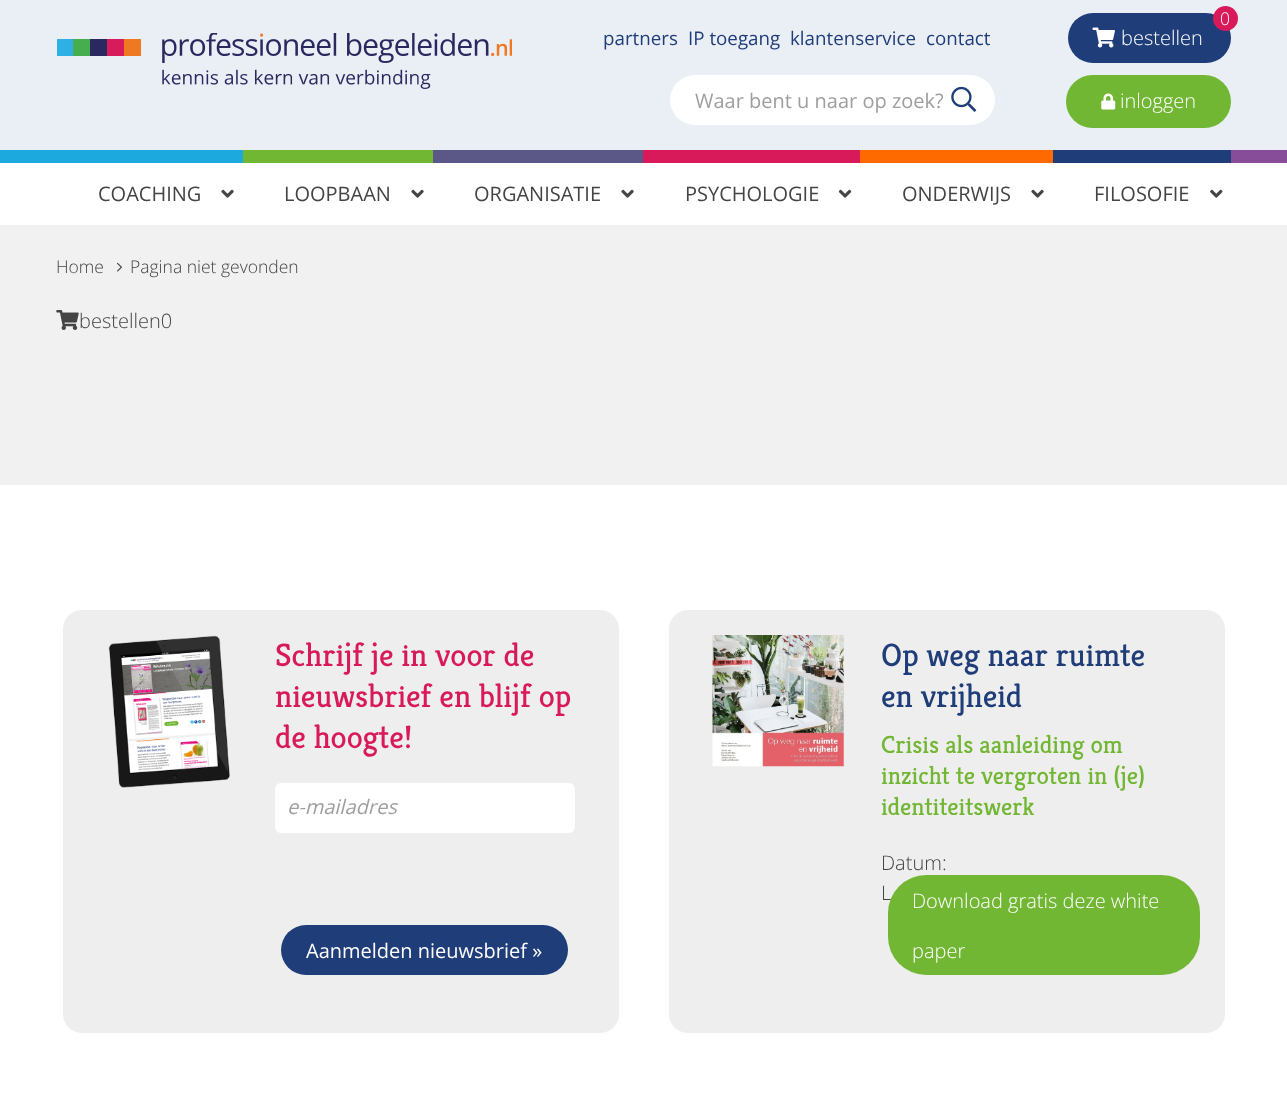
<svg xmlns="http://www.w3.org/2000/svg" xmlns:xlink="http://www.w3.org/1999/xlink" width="1287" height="1118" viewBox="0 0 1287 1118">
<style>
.cls-1{font:18.75px Open Sans;fill:#1f3d79}
.cls-2{font:20px Open Sans;fill:#9e9e9e}
.cls-3{font:300 17.5px Open Sans;fill:#ffffff}
.cls-4{font:300 20px Open Sans;fill:#ffffff}
.cls-5{font:20px Open Sans;fill:#444444}
.cls-6{font:300 17.5px Open Sans;fill:#444444}
.cls-7{font:300 20px Open Sans;fill:#444444}
.cls-8{font:32.5px Kreon;fill:#d81a5b}
.cls-9{font:italic 20px Open Sans;fill:#9e9e9e}
.cls-10{font:20px Open Sans;fill:#ffffff}
.cls-11{font:32.5px Kreon;fill:#1f3d79}
.cls-12{font:25px Kreon;fill:#72b734}
</style>
<rect width="100%" height="100%" fill="#f1f1f1"/>
<rect fill="#eaeef5" x="0" y="0" width="1287" height="150"/>
<image xlink:href="image0.png" x="57" y="33" width="455" height="56"/>
<rect fill="#ffffff" x="670" y="75" width="325" height="50" rx="25"/>
<image xlink:href="image1.png" x="951" y="86" width="26" height="26"/>
<rect fill="#1f3d79" x="1068" y="13" width="163" height="50" rx="25"/>
<circle fill="#d81a5b" cx="1225.5" cy="18.5" r="12.5"/>
<image xlink:href="image2.png" x="1092" y="27" width="23" height="21"/>
<rect fill="#72b734" x="1066" y="75" width="165" height="53" rx="26.5"/>
<image xlink:href="image3.png" x="1101" y="93" width="15" height="17"/>
<rect fill="#ffffff" x="0" y="163" width="1287" height="62"/>
<rect fill="#1ba9de" x="0" y="150" width="243" height="13"/>
<rect fill="#874d99" x="1231" y="150" width="56" height="13"/>
<image xlink:href="image4.png" x="221" y="189" width="13" height="9"/>
<rect fill="#72b734" x="243" y="150" width="190" height="13"/>
<image xlink:href="image4.png" x="411" y="189" width="13" height="9"/>
<rect fill="#5b5887" x="433" y="150" width="210" height="13"/>
<image xlink:href="image4.png" x="621" y="189" width="13" height="9"/>
<rect fill="#d81a5b" x="643" y="150" width="217" height="13"/>
<image xlink:href="image5.png" x="838" y="189" width="14" height="9"/>
<rect fill="#ff6a00" x="860" y="150" width="193" height="13"/>
<image xlink:href="image4.png" x="1031" y="189" width="13" height="9"/>
<rect fill="#1f3d79" x="1053" y="150" width="178" height="13"/>
<image xlink:href="image6.png" x="1210" y="189" width="13" height="9"/>
<image xlink:href="image7.png" x="117" y="262" width="5" height="10"/>
<image xlink:href="image8.png" x="56" y="310" width="23" height="20"/>
<rect fill="#ffffff" x="0" y="485" width="1287" height="633"/>
<rect fill="#eeeeee" x="63" y="610" width="556" height="423" rx="19"/>
<image xlink:href="image9.png" x="108" y="635" width="122" height="153"/>
<rect fill="#ffffff" x="275" y="783" width="300" height="50" rx="6"/>
<rect fill="#1f3d79" x="281" y="925" width="287" height="50" rx="25"/>
<rect fill="#eeeeee" x="669" y="610" width="556" height="423" rx="19"/>
<image xlink:href="image10.png" x="712" y="635" width="132" height="132"/>
<text class="cls-1" x="603" y="45">partners</text>
<text class="cls-1" x="688" y="45">IP toegang</text>
<text class="cls-1" x="790" y="45">klantenservice</text>
<text class="cls-1" x="926" y="45">contact</text>
<text class="cls-2" x="695" y="108">Waar bent u naar op zoek?</text>
<text class="cls-3" x="1220" y="25">0</text>
<text class="cls-4" x="1121" y="45">bestellen</text>
<text class="cls-4" x="1120" y="108">inloggen</text>
<text class="cls-5" x="98" y="201">COACHING</text>
<text class="cls-5" x="284" y="201">LOOPBAAN</text>
<text class="cls-5" x="474" y="201">ORGANISATIE</text>
<text class="cls-5" x="685" y="201">PSYCHOLOGIE</text>
<text class="cls-5" x="902" y="201">ONDERWIJS</text>
<text class="cls-5" x="1094" y="201">FILOSOFIE</text>
<text class="cls-6" x="56" y="273">Home</text>
<text class="cls-6" x="130" y="273">Pagina niet gevonden</text>
<text class="cls-7" x="79" y="328">bestellen0</text>
<text class="cls-8"><tspan x="275" y="666">Schrijf je in voor de</tspan><tspan x="275" y="707">nieuwsbrief en blijf op</tspan><tspan x="275" y="748">de hoogte!</tspan></text>
<text class="cls-9" x="287" y="814">e-mailadres</text>
<text class="cls-10" x="306" y="958">Aanmelden nieuwsbrief »</text>
<text class="cls-11"><tspan x="881" y="666">Op weg naar ruimte</tspan><tspan x="881" y="707">en vrijheid</tspan></text>
<text class="cls-12"><tspan x="881" y="753">Crisis als aanleiding om</tspan><tspan x="881" y="784">inzicht te vergroten in (je)</tspan><tspan x="881" y="815">identiteitswerk</tspan></text>
<text class="cls-7"><tspan x="881" y="870">Datum:</tspan><tspan x="881" y="900">L</tspan></text>
<rect fill="#72b734" x="888" y="875" width="312" height="100" rx="38"/>
<text class="cls-4" x="912" y="908">Download gratis deze white</text>
<text class="cls-4" x="912" y="958">paper</text>
</svg>
